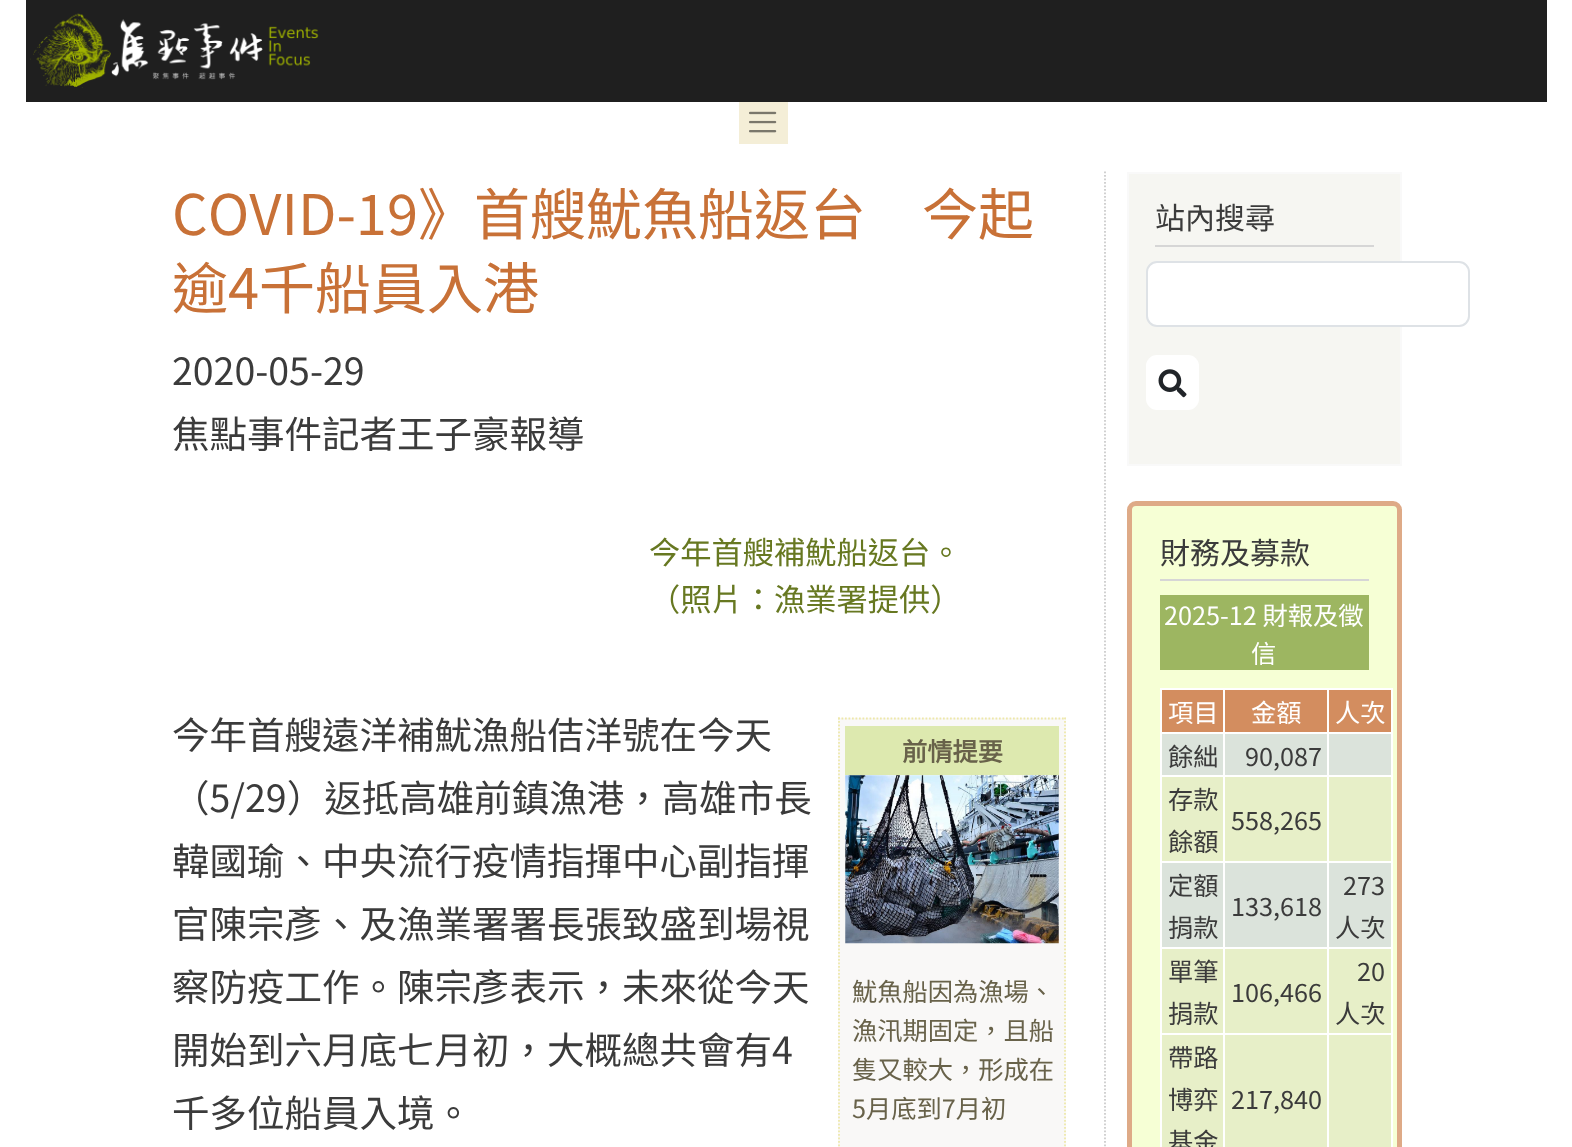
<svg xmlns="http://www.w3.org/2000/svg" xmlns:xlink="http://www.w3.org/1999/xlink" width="1572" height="1147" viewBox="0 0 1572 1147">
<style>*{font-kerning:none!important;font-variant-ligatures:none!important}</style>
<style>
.cls-1{font:100 56px Noto Sans TC;fill:#c87137}
.cls-2{font:100 37.5px Noto Sans TC;fill:#3b3b3b}
.cls-3{font:100 31.25px Noto Sans TC;fill:#677821}
.cls-4{font:bold 25.25px Noto Sans TC;fill:#68624a}
.cls-5{font:100 25.25px Noto Sans TC;fill:#68624a}
.cls-6{font:100 30px Noto Sans TC;fill:#3b3b3b}
.cls-7{font:100 25.25px Noto Sans TC;fill:#ffffff}
.cls-8{font:100 25.25px Noto Sans TC;fill:#3b3b3b}
</style>
<rect width="100%" height="100%" fill="#ffffff"/>
<rect fill="#1f1f1f" x="26" y="0" width="1521" height="102"/>
<image xlink:href="image0.png" x="30" y="13" width="289" height="75"/>
<rect fill="#f4eed7" x="739" y="102" width="49" height="42"/>
<image xlink:href="image1.png" x="749" y="111" width="28" height="22"/>
<rect fill="#f9f8f7" x="838" y="718" width="228" height="429"/>
<path fill="none" stroke="#eee8aa" stroke-width="1.8" stroke-dasharray="1.75 1.75" d="M838 718.5H1066"/>
<path fill="none" stroke="#eee8aa" stroke-width="1.8" stroke-dasharray="1.75 1.75" d="M1065 717.5V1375.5"/>
<path fill="none" stroke="#eee8aa" stroke-width="1.8" stroke-dasharray="1.75 1.75" d="M839 717.5V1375.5"/>
<rect fill="#dde9af" x="845" y="726" width="214" height="49"/>
<image xlink:href="image2.png" x="845" y="775" width="214" height="169"/>
<path fill="none" stroke="#cccccc" stroke-width="1.8" stroke-dasharray="1.75 1.75" d="M1105 171.5V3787"/>
<rect fill="#f6f6f2" stroke="#f9f9f9" stroke-width="2" x="1128" y="173" width="273" height="292"/>
<rect fill="#d6d6d6" x="1155" y="245" width="219" height="2"/>
<rect fill="#ffffff" stroke="#dee2e6" stroke-width="2" x="1147" y="262" width="322" height="64" rx="10"/>
<rect fill="#ffffff" x="1146" y="355" width="53" height="55" rx="11"/>
<image xlink:href="image3.png" x="1158" y="369" width="29" height="29"/>
<rect fill="#f6ffd5" stroke="#deaa87" stroke-width="5" x="1129.5" y="503.5" width="270" height="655" rx="6.5"/>
<rect fill="#d6d6d6" x="1160" y="579" width="209" height="2"/>
<rect fill="#9db661" x="1160" y="595" width="209" height="75"/>
<rect fill="#d38d5f" x="1162" y="690" width="61" height="42"/>
<rect fill="#ffffff" x="1327" y="688" width="66" height="2"/>
<rect fill="#ffffff" x="1327" y="732" width="66" height="2"/>
<rect fill="#ffffff" x="1327" y="775" width="66" height="2"/>
<rect fill="#e7efc8" x="1162" y="777" width="229" height="84"/>
<rect fill="#ffffff" x="1327" y="861" width="66" height="2"/>
<rect fill="#ffffff" x="1327" y="947" width="66" height="2"/>
<rect fill="#e7efc8" x="1162" y="949" width="229" height="84"/>
<rect fill="#ffffff" x="1327" y="1033" width="66" height="2"/>
<rect fill="#e7efc8" x="1162" y="1035" width="229" height="112"/>
<rect fill="#ffffff" x="1327" y="1033" width="2" height="114"/>
<rect fill="#ffffff" x="1223" y="1033" width="105" height="2"/>
<rect fill="#ffffff" x="1327" y="947" width="2" height="87"/>
<rect fill="#ffffff" x="1223" y="947" width="105" height="2"/>
<rect fill="#ffffff" x="1327" y="861" width="2" height="88"/>
<rect fill="#ffffff" x="1223" y="861" width="105" height="2"/>
<rect fill="#ffffff" x="1327" y="775" width="2" height="88"/>
<rect fill="#ffffff" x="1223" y="775" width="105" height="2"/>
<rect fill="#ffffff" x="1327" y="732" width="2" height="45"/>
<rect fill="#ffffff" x="1223" y="732" width="105" height="2"/>
<rect fill="#ffffff" x="1327" y="688" width="2" height="45"/>
<rect fill="#ffffff" x="1223" y="688" width="105" height="2"/>
<rect fill="#ffffff" x="1223" y="1033" width="2" height="114"/>
<rect fill="#ffffff" x="1160" y="1033" width="65" height="2"/>
<rect fill="#ffffff" x="1223" y="947" width="2" height="87"/>
<rect fill="#ffffff" x="1160" y="947" width="65" height="2"/>
<rect fill="#ffffff" x="1223" y="861" width="2" height="88"/>
<rect fill="#ffffff" x="1160" y="861" width="65" height="2"/>
<rect fill="#ffffff" x="1223" y="775" width="2" height="88"/>
<rect fill="#ffffff" x="1160" y="775" width="65" height="2"/>
<rect fill="#ffffff" x="1223" y="732" width="2" height="45"/>
<rect fill="#ffffff" x="1160" y="732" width="65" height="2"/>
<rect fill="#ffffff" x="1223" y="688" width="2" height="45"/>
<rect fill="#ffffff" x="1160" y="688" width="65" height="2"/>
<rect fill="#ffffff" x="1160" y="1033" width="2" height="114"/>
<rect fill="#ffffff" x="1160" y="947" width="2" height="87"/>
<rect fill="#ffffff" x="1160" y="861" width="2" height="88"/>
<rect fill="#ffffff" x="1160" y="775" width="2" height="88"/>
<rect fill="#ffffff" x="1160" y="732" width="2" height="45"/>
<rect fill="#ffffff" x="1160" y="688" width="2" height="45"/>
<rect fill="#d38d5f" x="1225" y="690" width="102" height="42"/>
<rect fill="#d38d5f" x="1329" y="690" width="62" height="42"/>
<rect fill="#ffffff" x="1391" y="1033" width="2" height="114"/>
<rect fill="#ffffff" x="1391" y="947" width="2" height="87"/>
<rect fill="#ffffff" x="1391" y="861" width="2" height="88"/>
<rect fill="#ffffff" x="1391" y="775" width="2" height="88"/>
<rect fill="#ffffff" x="1391" y="732" width="2" height="45"/>
<rect fill="#ffffff" x="1391" y="688" width="2" height="45"/>
<rect fill="#dbe3db" x="1162" y="734" width="61" height="41"/>
<rect fill="#dbe3db" x="1225" y="734" width="102" height="41"/>
<rect fill="#dbe3db" x="1329" y="734" width="62" height="41"/>
<rect fill="#dbe3db" x="1162" y="863" width="61" height="84"/>
<rect fill="#dbe3db" x="1225" y="863" width="102" height="84"/>
<rect fill="#dbe3db" x="1329" y="863" width="62" height="84"/>
<text class="cls-1"><tspan x="172" y="235">COVID-19》首艘魷魚船返台　今起</tspan><tspan x="172" y="309">逾4千船員入港</tspan></text>
<text class="cls-2"><tspan x="172" y="385">2020-05-29</tspan><tspan x="172" y="448">焦點事件記者王子豪報導</tspan></text>
<text class="cls-3"><tspan x="649" y="564">今年首艘補魷船返台。</tspan><tspan x="649" y="611">（照片：漁業署提供）</tspan></text>
<text class="cls-2"><tspan x="172" y="749">今年首艘遠洋補魷漁船佶洋號在今天</tspan><tspan x="172" y="812">（5/29）返抵高雄前鎮漁港，高雄市長</tspan><tspan x="172" y="875">韓國瑜、中央流行疫情指揮中心副指揮</tspan><tspan x="172" y="938">官陳宗彥、及漁業署署長張致盛到場視</tspan><tspan x="172" y="1001">察防疫工作。陳宗彥表示，未來從今天</tspan><tspan x="172" y="1064">開始到六月底七月初，大概總共會有4</tspan><tspan x="172" y="1127">千多位船員入境。</tspan></text>
<text class="cls-4" x="902" y="761">前情提要</text>
<text class="cls-5"><tspan x="852" y="1001">魷魚船因為漁場、</tspan><tspan x="852" y="1040">漁汛期固定，且船</tspan><tspan x="852" y="1079">隻又較大，形成在</tspan><tspan x="852" y="1118">5月底到7月初</tspan></text>
<text class="cls-6" x="1155" y="229">站內搜尋</text>
<text class="cls-6" x="1160" y="564">財務及募款</text>
<text class="cls-7" x="1164" y="625">2025-12 財報及徵</text>
<text class="cls-7" x="1251" y="663">信</text>
<text class="cls-7" x="1168" y="722">項目</text>
<text class="cls-7" x="1251" y="722">金額</text>
<text class="cls-7" x="1335" y="722">人次</text>
<text class="cls-8" x="1168" y="766">餘絀</text>
<text class="cls-8" x="1245" y="766">90,087</text>
<text class="cls-8"><tspan x="1168" y="809">存款</tspan><tspan x="1168" y="851">餘額</tspan></text>
<text class="cls-8" x="1231" y="830">558,265</text>
<text class="cls-8"><tspan x="1168" y="895">定額</tspan><tspan x="1168" y="937">捐款</tspan></text>
<text class="cls-8" x="1231" y="916">133,618</text>
<text class="cls-8" x="1343" y="895">273</text>
<text class="cls-8" x="1335" y="937">人次</text>
<text class="cls-8"><tspan x="1168" y="981">單筆</tspan><tspan x="1168" y="1023">捐款</tspan></text>
<text class="cls-8" x="1231" y="1002">106,466</text>
<text class="cls-8" x="1357" y="981">20</text>
<text class="cls-8" x="1335" y="1023">人次</text>
<text class="cls-8"><tspan x="1168" y="1067">帶路</tspan><tspan x="1168" y="1109">博弈</tspan><tspan x="1168" y="1151">基金</tspan></text>
<text class="cls-8" x="1231" y="1109">217,840</text>
</svg>
